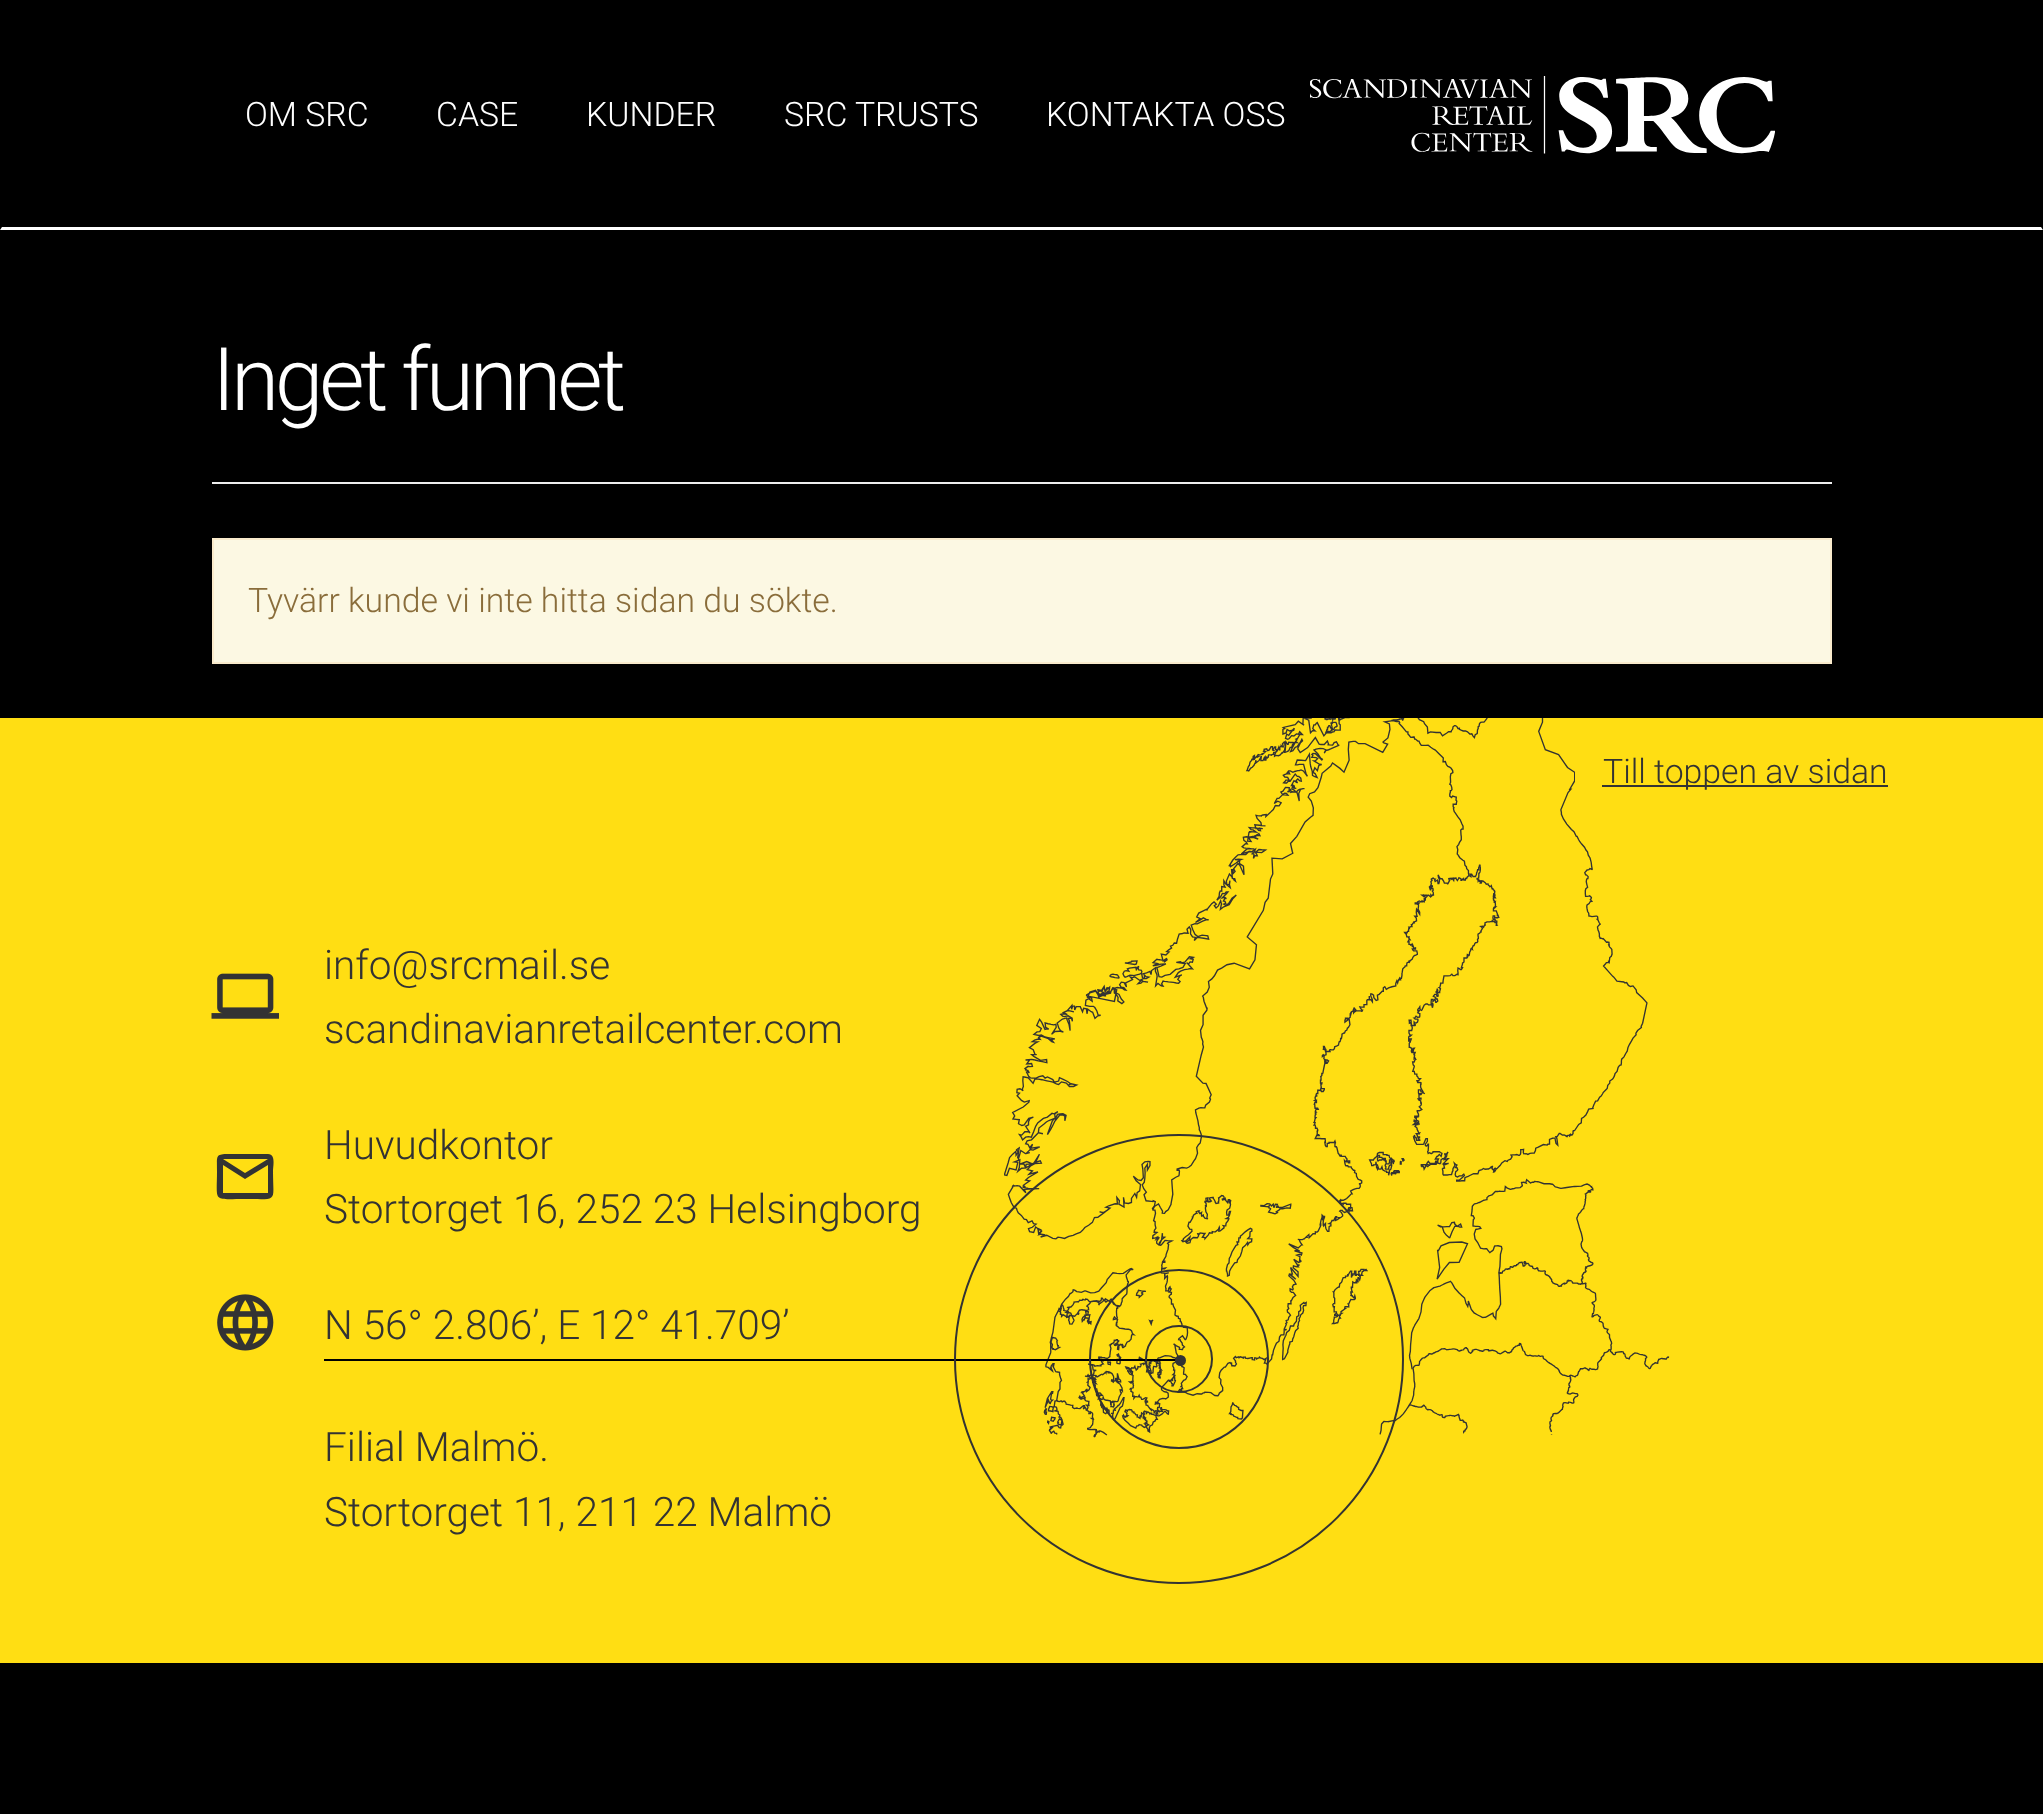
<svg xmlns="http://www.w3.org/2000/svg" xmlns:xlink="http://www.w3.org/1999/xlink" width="2043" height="1814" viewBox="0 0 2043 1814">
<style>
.cls-1{font:300 33.75px Roboto;fill:#ffffff}
.cls-2{font:300 87.75px Roboto;letter-spacing:-4.4px;fill:#ffffff}
.cls-3{font:300 33.75px Roboto;fill:#8a6d3b}
.cls-4{font:300 33.75px Roboto;fill:#333333}
.cls-5{font:300 40.5px Roboto;fill:#333333}
</style>
<rect width="100%" height="100%" fill="#000000"/>
<path fill="#ffffff" d="M2043 230H0L2 227H2041Z"/>
<image xlink:href="image0.png" x="1310" y="76" width="465" height="78"/>
<rect fill="#eeeeee" x="212" y="482" width="1620" height="2"/>
<rect fill="#fcf8e3" stroke="#faebcc" stroke-width="2" x="213" y="539" width="1618" height="124"/>
<rect fill="#ffde13" x="0" y="718" width="2043" height="945"/>
<image xlink:href="image1.png" x="1004" y="718" width="666" height="720"/>
<rect fill="#ffde13" x="1575" y="771" width="1" height="11"/>
<rect fill="#333333" x="1602" y="785" width="286" height="2"/>
<image xlink:href="image2.png" x="211" y="973" width="68" height="46"/>
<path fill="#333333" d="M268 1154H230C215 1154 217 1155 217 1171C217 1203 212 1199 245 1199C279 1199 273 1203 273 1171C273 1166 276 1154 268 1154ZM268 1193H223V1165L245 1179L268 1165ZM268 1159L245 1173L223 1159Z"/>
<rect fill="#000000" x="324" y="1359" width="855" height="2"/>
<circle fill="#333333" stroke="#333333" stroke-width="2" cx="1180.5" cy="1360.5" r="4.5"/>
<circle fill="none" stroke="#333333" stroke-width="2" cx="1179" cy="1359" r="33"/>
<circle fill="none" stroke="#333333" stroke-width="2" cx="1179" cy="1359" r="89"/>
<circle fill="none" stroke="#333333" stroke-width="2" cx="1179" cy="1359" r="224"/>
<image xlink:href="image3.png" x="217" y="1294" width="57" height="57"/>
<text class="cls-1" x="245" y="126">OM SRC</text>
<text class="cls-1" x="436" y="126">CASE</text>
<text class="cls-1" x="586" y="126">KUNDER</text>
<text class="cls-1" x="784" y="126">SRC TRUSTS</text>
<text class="cls-1" x="1046" y="126">KONTAKTA OSS</text>
<text class="cls-2" x="212" y="410">Inget funnet</text>
<text class="cls-3" x="248" y="612">Tyvärr kunde vi inte hitta sidan du sökte.</text>
<text class="cls-4" x="1603" y="783">Till toppen av sidan</text>
<text class="cls-5"><tspan x="324" y="979">info@srcmail.se</tspan><tspan x="324" y="1043">scandinavianretailcenter.com</tspan></text>
<text class="cls-5"><tspan x="324" y="1159">Huvudkontor</tspan><tspan x="324" y="1223">Stortorget 16, 252 23 Helsingborg</tspan></text>
<text class="cls-5" x="324" y="1339">N 56° 2.806’, E 12° 41.709’</text>
<text class="cls-5"><tspan x="324" y="1461">Filial Malmö.</tspan><tspan x="324" y="1526">Stortorget 11, 211 22 Malmö</tspan></text>
</svg>
